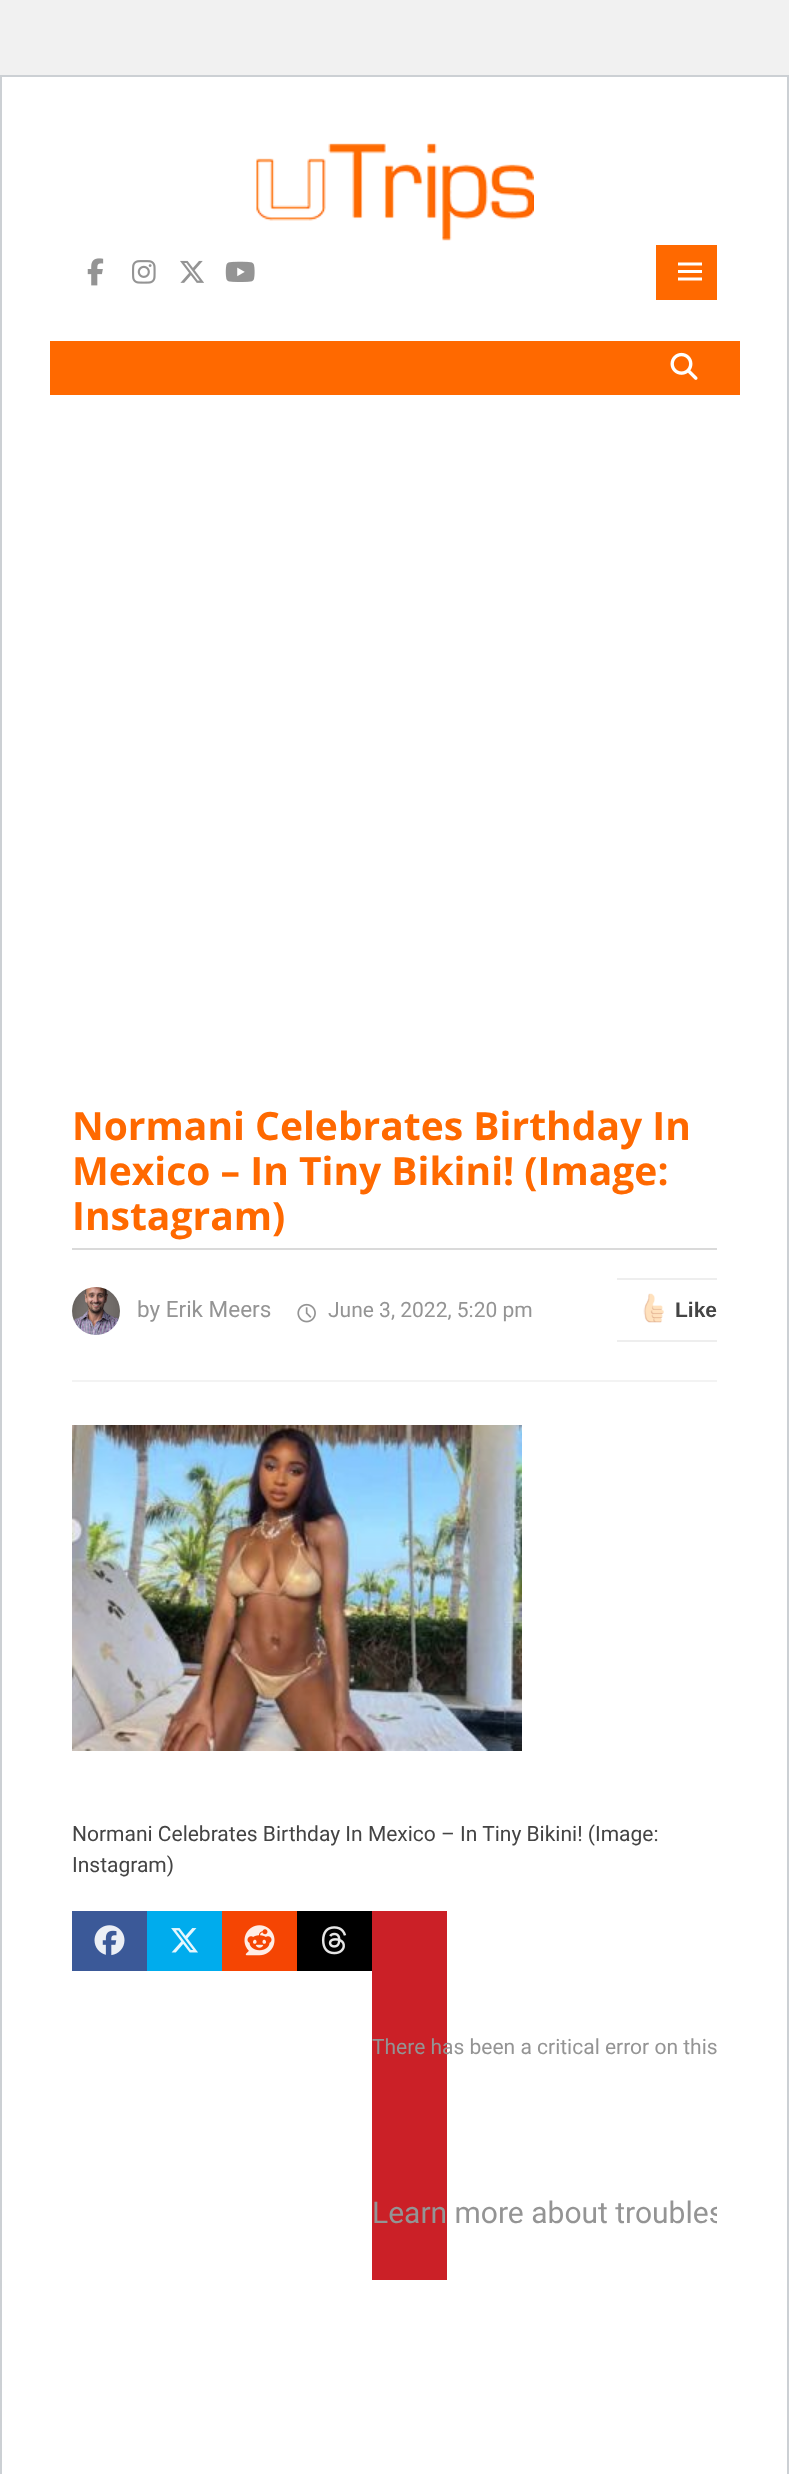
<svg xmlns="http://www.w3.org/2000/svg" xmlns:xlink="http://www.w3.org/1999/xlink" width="789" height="2474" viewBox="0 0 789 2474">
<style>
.cls-1{font:bold 39px Open Sans;fill:#ff6900}
.cls-2{font:22.5px Roboto;fill:#949494}
.cls-3{font:21px Roboto;fill:#949494}
.cls-4{font:bold 21px Liberation Sans;fill:#444444}
.cls-5{font:21px Roboto;fill:#444444}
.cls-6{font:30px Roboto;fill:#949494}
</style>
<defs>
<clipPath id="clip1"><rect x="72" y="1911" width="645" height="384"/></clipPath>
</defs>
<rect width="100%" height="100%" fill="#f1f1f1"/>
<rect fill="#ffffff" stroke="#ccd0d4" stroke-width="2" x="1" y="76" width="787" height="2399"/>
<image xlink:href="image0.png" x="256" y="143" width="278" height="98"/>
<image xlink:href="image1.png" x="87" y="258" width="17" height="28"/>
<image xlink:href="image2.png" x="132" y="260" width="24" height="24"/>
<image xlink:href="image3.png" x="180" y="260" width="24" height="23"/>
<image xlink:href="image4.png" x="225" y="261" width="30" height="21"/>
<rect fill="#ff6900" x="656" y="245" width="61" height="55"/>
<image xlink:href="image5.png" x="678" y="262" width="24" height="19"/>
<rect fill="#ff6900" x="50" y="341" width="690" height="54"/>
<image xlink:href="image6.png" x="670" y="352" width="28" height="28"/>
<rect fill="#dadada" x="72" y="1248" width="645" height="2"/>
<rect fill="#f3f3f3" x="72" y="1380" width="645" height="2"/>
<image xlink:href="image7.png" x="72" y="1287" width="48" height="48"/>
<image xlink:href="image8.png" x="297" y="1303" width="19" height="20"/>
<rect fill="#eeeeee" x="617" y="1278" width="100" height="2"/>
<rect fill="#eeeeee" x="617" y="1340" width="100" height="2"/>
<image xlink:href="image9.png" x="643" y="1293" width="21" height="30"/>
<image xlink:href="image10.png" x="72" y="1425" width="450" height="326"/>
<rect fill="#3b5998" x="72" y="1911" width="75" height="60"/>
<image xlink:href="image11.png" x="94" y="1925" width="31" height="31"/>
<rect fill="#00aced" x="147" y="1911" width="75" height="60"/>
<image xlink:href="image12.png" x="171" y="1928" width="27" height="25"/>
<rect fill="#f54503" x="222" y="1911" width="75" height="60"/>
<image xlink:href="image13.png" x="244" y="1925" width="31" height="31"/>
<rect fill="#000000" x="297" y="1911" width="75" height="60"/>
<image xlink:href="image14.png" x="321" y="1926" width="26" height="29"/>
<rect fill="#cb2027" x="372" y="1911" width="75" height="369"/>
<text class="cls-1"><tspan x="72" y="1140">Normani Celebrates Birthday In</tspan><tspan x="72" y="1185">Mexico – In Tiny Bikini! (Image:</tspan><tspan x="72" y="1230">Instagram)</tspan></text>
<text class="cls-2" x="137" y="1317">by Erik Meers</text>
<text class="cls-3" x="328" y="1317">June 3, 2022, 5:20 pm</text>
<text class="cls-4" x="675" y="1317">Like</text>
<text class="cls-5"><tspan x="72" y="1841">Normani Celebrates Birthday In Mexico – In Tiny Bikini! (Image:</tspan><tspan x="72" y="1872">Instagram)</tspan></text>
<text class="cls-3" x="372" y="2054">There has been a critical error on this</text>
<g clip-path="url(#clip1)">
<text class="cls-6" x="372" y="2223">Learn more about troubles</text>
</g>
</svg>
